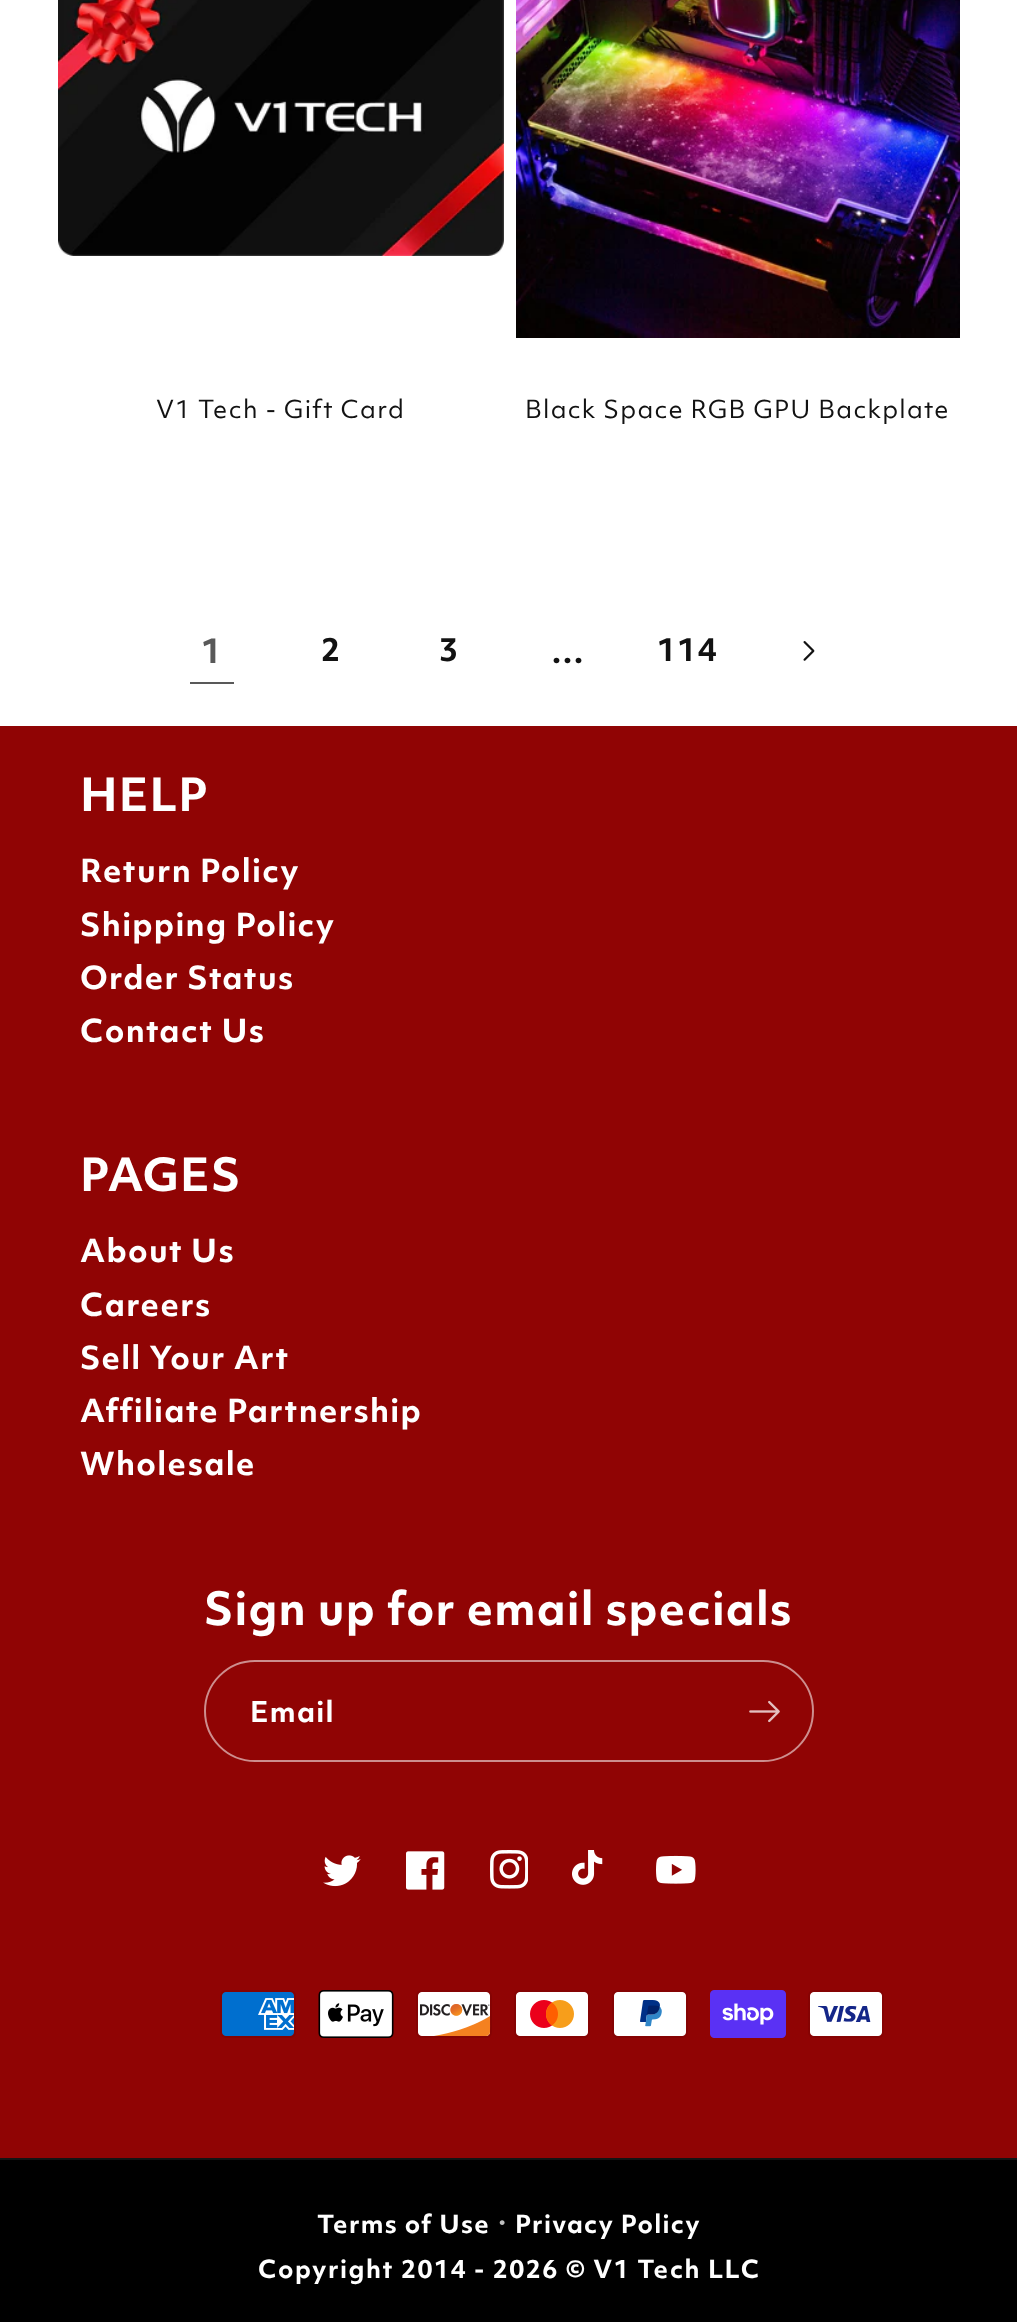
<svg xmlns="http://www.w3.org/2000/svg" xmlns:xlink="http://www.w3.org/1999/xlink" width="1017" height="2322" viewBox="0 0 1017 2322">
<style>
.cls-1{font:24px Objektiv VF;letter-spacing:1.2px;fill:#121212}
.cls-2{font:bold 33px Objektiv VF;letter-spacing:1.3px;fill:#595959}
.cls-3{font:bold 30.75px Objektiv VF;letter-spacing:1.3px;fill:#121212}
.cls-4{font:bold 33px Objektiv VF;letter-spacing:1.3px;fill:#121212}
.cls-5{font:bold 44px Objektiv VF;letter-spacing:1.2px;fill:#ffffff}
.cls-6{font:bold 30.75px Objektiv VF;letter-spacing:1.3px;fill:#ffffff}
.cls-7{font:bold 27.5px Objektiv VF;letter-spacing:1.3px;fill:#ffffff}
.cls-8{font:bold 24.2px Objektiv VF;letter-spacing:1.3px;fill:#ffffff}
.cls-9{font:bold 27.5px Objektiv VF;letter-spacing:1.3px;fill:#bfbfbf}
.cls-10{font:bold 24.2px Objektiv VF;letter-spacing:1.55px;fill:#ffffff}
</style>
<rect width="100%" height="100%" fill="#ffffff"/>
<image xlink:href="image0.png" x="58" y="0" width="446" height="256"/>
<image xlink:href="image1.png" x="516" y="0" width="444" height="338"/>
<rect fill="#595959" x="190" y="682" width="44" height="2"/>
<image xlink:href="image2.png" x="803" y="641" width="12" height="20"/>
<rect fill="#900404" x="0" y="726" width="1017" height="1432"/>
<rect fill="none" stroke="#cd8e8e" stroke-width="2" x="205" y="1661" width="608" height="100" rx="50"/>
<image xlink:href="image3.png" x="749" y="1700" width="31" height="23"/>
<image xlink:href="image4.png" x="323" y="1855" width="38" height="32"/>
<image xlink:href="image5.png" x="406" y="1851" width="39" height="39"/>
<image xlink:href="image6.png" x="490" y="1850" width="38" height="39"/>
<image xlink:href="image7.png" x="572" y="1850" width="31" height="35"/>
<image xlink:href="image8.png" x="656" y="1855" width="40" height="29"/>
<image xlink:href="image9.png" x="220" y="1990" width="76" height="48"/>
<image xlink:href="image10.png" x="318" y="1990" width="76" height="48"/>
<image xlink:href="image11.png" x="416" y="1990" width="76" height="48"/>
<image xlink:href="image12.png" x="514" y="1990" width="76" height="48"/>
<image xlink:href="image13.png" x="612" y="1990" width="76" height="48"/>
<image xlink:href="image14.png" x="710" y="1990" width="76" height="48"/>
<image xlink:href="image15.png" x="808" y="1990" width="76" height="48"/>
<rect fill="#000000" x="0" y="2160" width="1017" height="162"/>
<rect fill="#141414" x="0" y="2158" width="1017" height="2"/>
<text class="cls-1" x="156" y="418">V1 Tech - Gift Card</text>
<text class="cls-1" x="525" y="418">Black Space RGB GPU Backplate</text>
<text class="cls-2" x="201" y="663">1</text>
<text class="cls-3" x="321" y="661">2</text>
<text class="cls-3" x="439" y="661">3</text>
<text class="cls-4" x="551" y="663">…</text>
<text class="cls-3" x="657" y="661">114</text>
<text class="cls-5" x="80" y="811">HELP</text>
<text class="cls-6"><tspan x="80" y="882">Return Policy</tspan><tspan x="80" y="936">Shipping Policy</tspan><tspan x="80" y="989">Order Status</tspan><tspan x="80" y="1042">Contact Us</tspan></text>
<text class="cls-5" x="80" y="1191">PAGES</text>
<text class="cls-6"><tspan x="80" y="1262">About Us</tspan><tspan x="80" y="1316">Careers</tspan><tspan x="80" y="1369">Sell Your Art</tspan><tspan x="80" y="1422">Affiliate Partnership</tspan><tspan x="80" y="1475">Wholesale</tspan></text>
<text class="cls-5" x="204" y="1625">Sign up for email specials</text>
<text class="cls-7" x="250" y="1722">Email</text>
<text class="cls-8" x="317" y="2233">Terms of Use</text>
<text class="cls-9" x="498" y="2233">·</text>
<text class="cls-8" x="515" y="2233">Privacy Policy</text>
<text class="cls-10" x="258" y="2278">Copyright 2014 - 2026 © V1 Tech LLC</text>
</svg>
